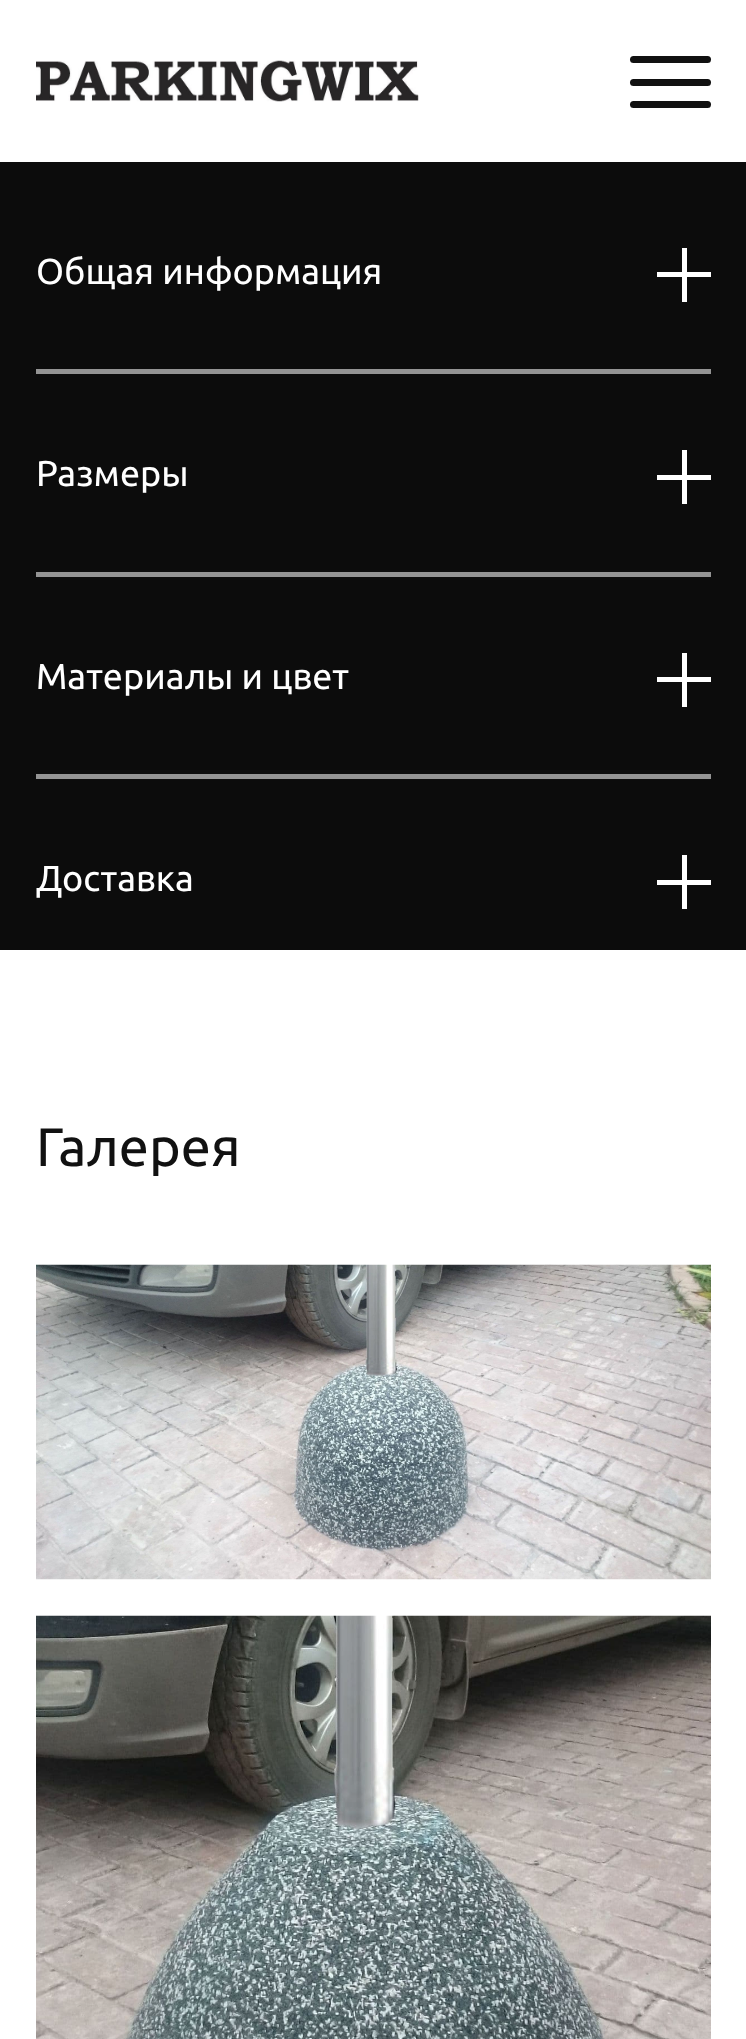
<svg xmlns="http://www.w3.org/2000/svg" xmlns:xlink="http://www.w3.org/1999/xlink" width="746" height="2039" viewBox="0 0 746 2039">
<style>
.cls-1{font:36px Ubuntu;fill:#ffffff}
.cls-2{font:54px Ubuntu;fill:#111111}
</style>
<rect width="100%" height="100%" fill="#ffffff"/>
<image xlink:href="image0.png" x="36" y="60" width="383" height="42"/>
<rect fill="#111111" x="630" y="79" width="81" height="7" rx="3.5"/>
<rect fill="#111111" x="630" y="56" width="81" height="7" rx="3.5"/>
<rect fill="#111111" x="630" y="101" width="81" height="7" rx="3.5"/>
<rect fill="#0c0c0c" x="0" y="162" width="746" height="788"/>
<rect fill="#949494" x="36" y="369" width="675" height="5"/>
<rect fill="#ffffff" x="657" y="272" width="54" height="5"/>
<rect fill="#ffffff" x="682" y="248" width="5" height="54"/>
<rect fill="#949494" x="36" y="572" width="675" height="5"/>
<rect fill="#ffffff" x="657" y="475" width="54" height="5"/>
<rect fill="#ffffff" x="682" y="450" width="5" height="54"/>
<rect fill="#949494" x="36" y="774" width="675" height="5"/>
<rect fill="#ffffff" x="657" y="677" width="54" height="5"/>
<rect fill="#ffffff" x="682" y="653" width="5" height="54"/>
<rect fill="#ffffff" x="657" y="880" width="54" height="5"/>
<rect fill="#ffffff" x="682" y="855" width="5" height="54"/>
<image xlink:href="image1.png" x="36" y="1264" width="675" height="316"/>
<image xlink:href="image2.png" x="36" y="1615" width="675" height="424"/>
<text class="cls-1" x="36" y="284">Общая информация</text>
<text class="cls-1" x="36" y="486">Размеры</text>
<text class="cls-1" x="36" y="689">Материалы и цвет</text>
<text class="cls-1" x="36" y="891">Доставка</text>
<text class="cls-2" x="36" y="1166">Галерея</text>
</svg>
